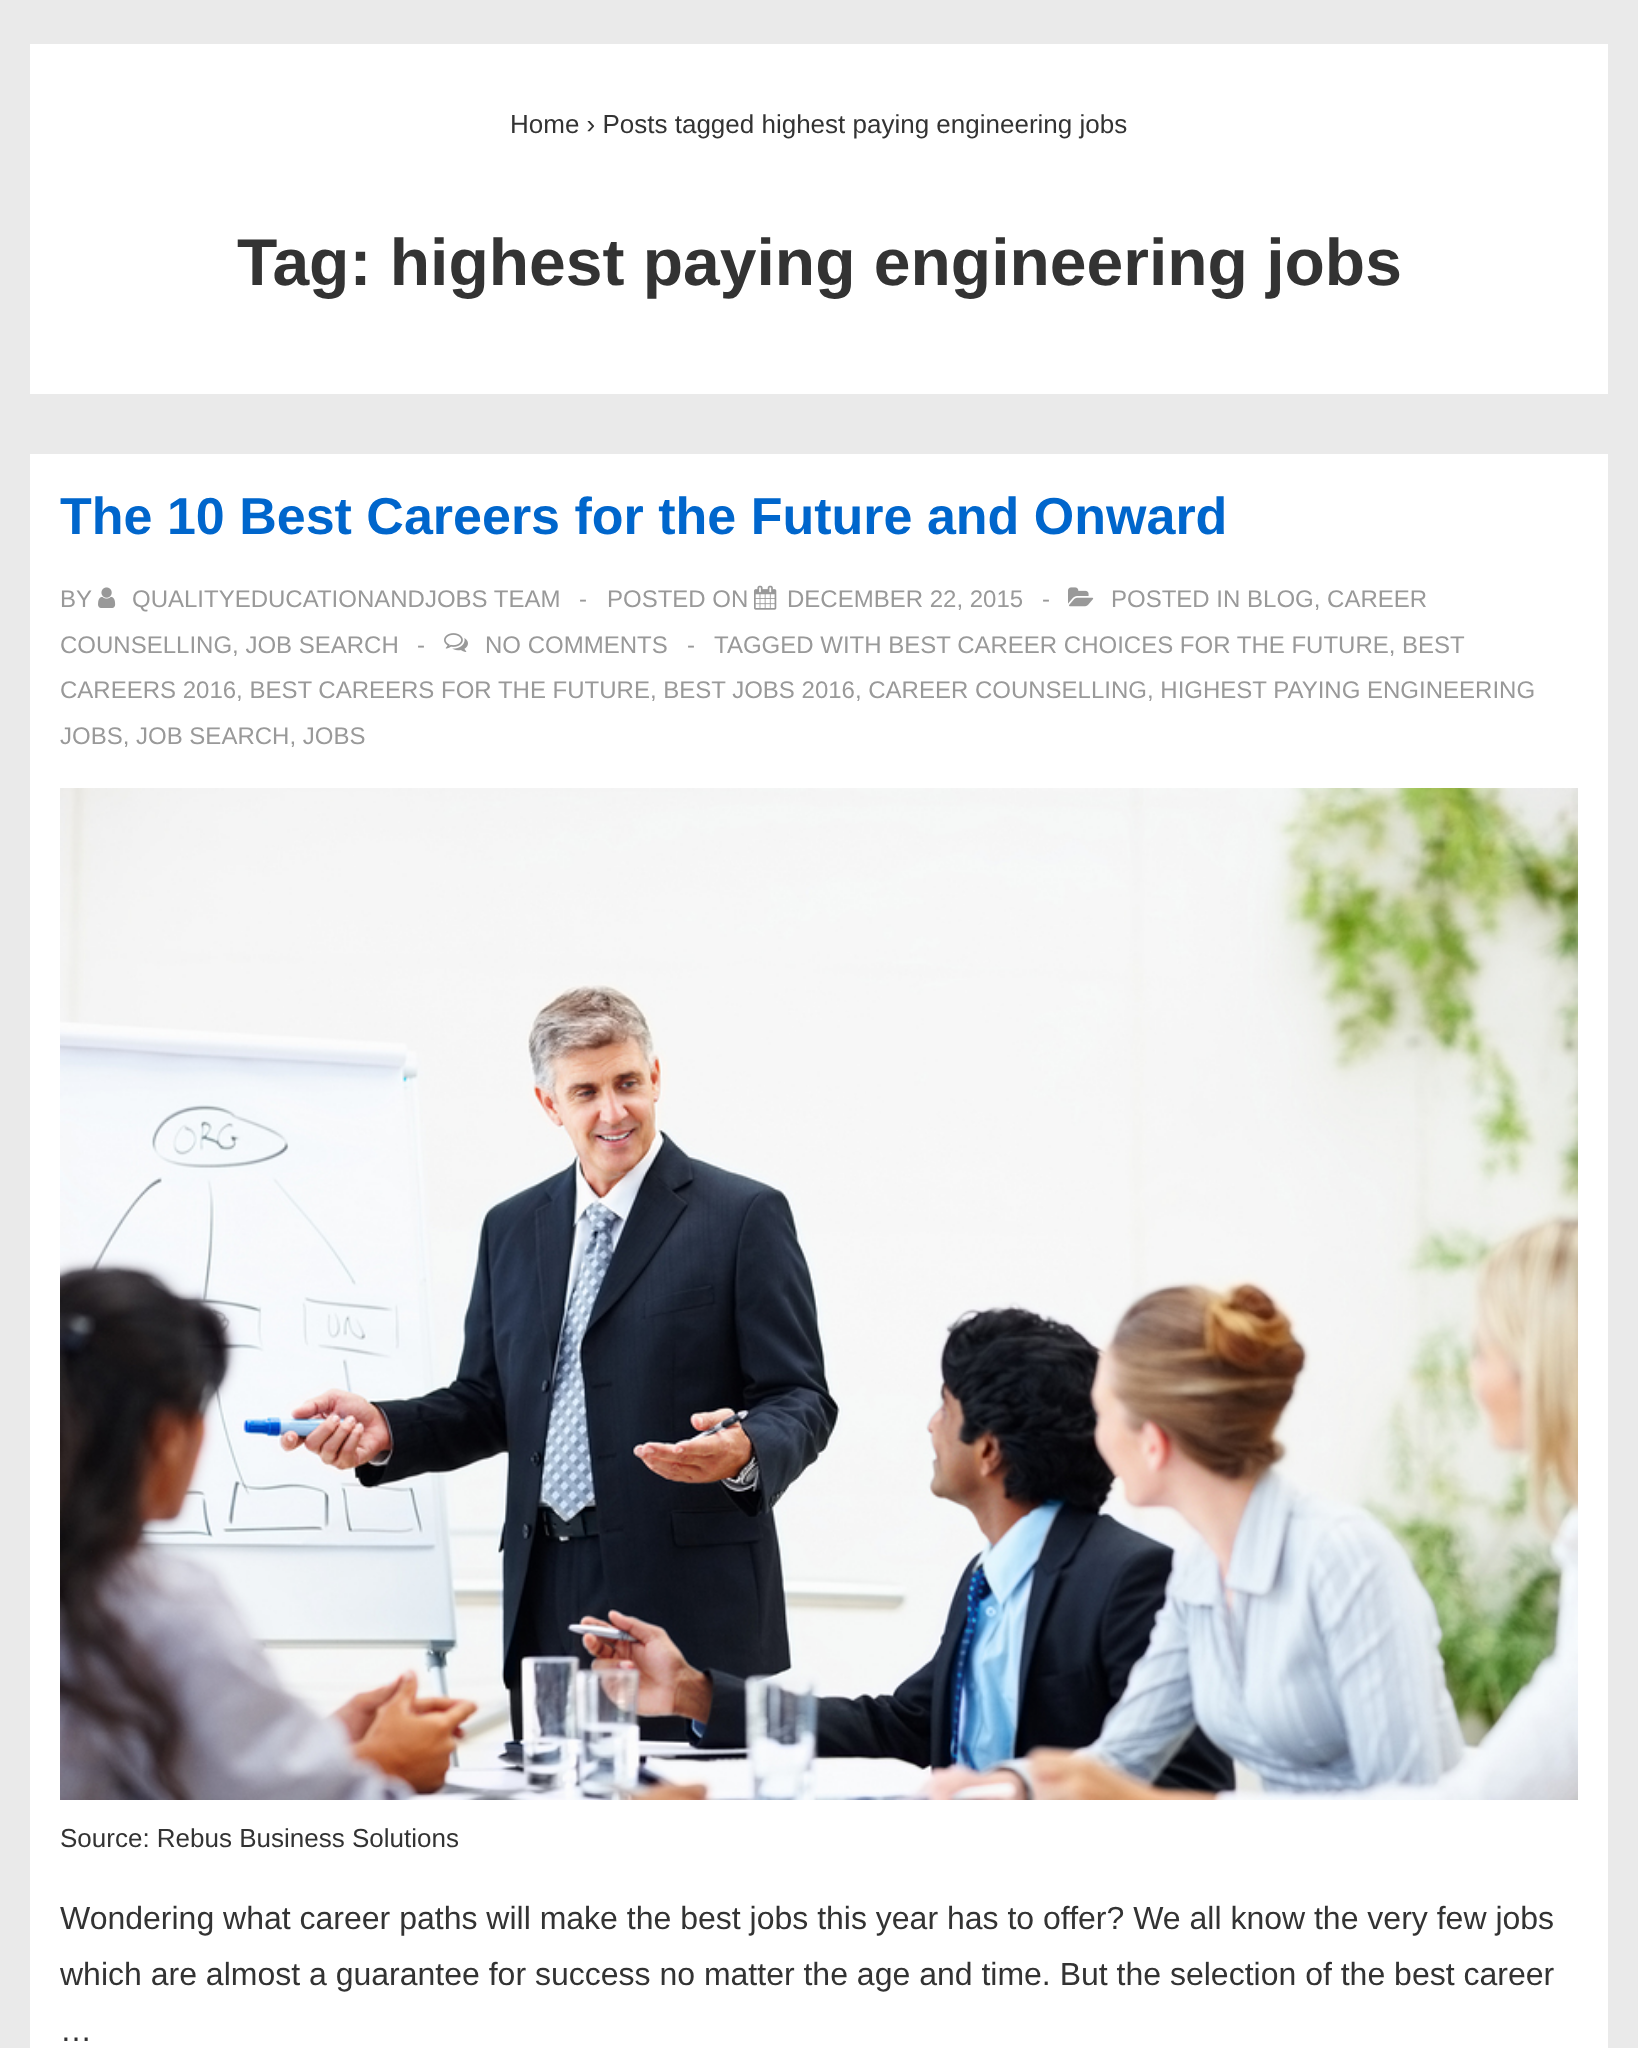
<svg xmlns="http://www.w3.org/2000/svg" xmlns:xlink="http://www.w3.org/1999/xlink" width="1638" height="2048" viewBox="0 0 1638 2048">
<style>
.cls-1{font:26px Liberation Sans;fill:#333333}
.cls-2{font:bold 66px Liberation Sans;fill:#333333}
.cls-3{font:bold 52px Liberation Sans;fill:#0066cc}
.cls-4{font:24px Liberation Sans;fill:#999999}
.cls-5{font:32px Liberation Sans;fill:#333333}
</style>
<rect width="100%" height="100%" fill="#eaeaea"/>
<rect fill="#ffffff" x="30" y="44" width="1578" height="350"/>
<rect fill="#ffffff" x="30" y="454" width="1578" height="1594"/>
<image xlink:href="image0.png" x="98" y="587" width="18" height="21"/>
<image xlink:href="image1.png" x="754" y="585" width="23" height="25"/>
<image xlink:href="image2.png" x="1068" y="587" width="26" height="20"/>
<image xlink:href="image3.png" x="444" y="633" width="24" height="19"/>
<image xlink:href="image4.png" x="60" y="788" width="1518" height="1012"/>
<text class="cls-1" x="510" y="133">Home › Posts tagged highest paying engineering jobs</text>
<text class="cls-2" x="237" y="285">Tag: highest paying engineering jobs</text>
<text class="cls-3" x="60" y="534">The 10 Best Careers for the Future and Onward</text>
<text class="cls-4" x="60" y="607">BY</text>
<text class="cls-4" x="132" y="607">QUALITYEDUCATIONANDJOBS TEAM</text>
<text class="cls-4" x="579" y="607">-</text>
<text class="cls-4" x="607" y="607">POSTED ON</text>
<text class="cls-4" x="787" y="607">DECEMBER 22, 2015</text>
<text class="cls-4" x="1042" y="607">-</text>
<text class="cls-4" x="1111" y="607">POSTED IN BLOG, CAREER</text>
<text class="cls-4" x="60" y="653">COUNSELLING, JOB SEARCH</text>
<text class="cls-4" x="417" y="653">-</text>
<text class="cls-4" x="485" y="653">NO COMMENTS</text>
<text class="cls-4" x="687" y="653">-</text>
<text class="cls-4" x="714" y="653">TAGGED WITH BEST CAREER CHOICES FOR THE FUTURE, BEST</text>
<text class="cls-4"><tspan x="60" y="698">CAREERS 2016, BEST CAREERS FOR THE FUTURE, BEST JOBS 2016, CAREER COUNSELLING, HIGHEST PAYING ENGINEERING</tspan><tspan x="60" y="744">JOBS, JOB SEARCH, JOBS</tspan></text>
<text class="cls-1" x="60" y="1847">Source: Rebus Business Solutions</text>
<text class="cls-5"><tspan x="60" y="1929">Wondering what career paths will make the best jobs this year has to offer? We all know the very few jobs</tspan><tspan x="60" y="1985">which are almost a guarantee for success no matter the age and time. But the selection of the best career</tspan><tspan x="60" y="2041">…</tspan></text>
</svg>
